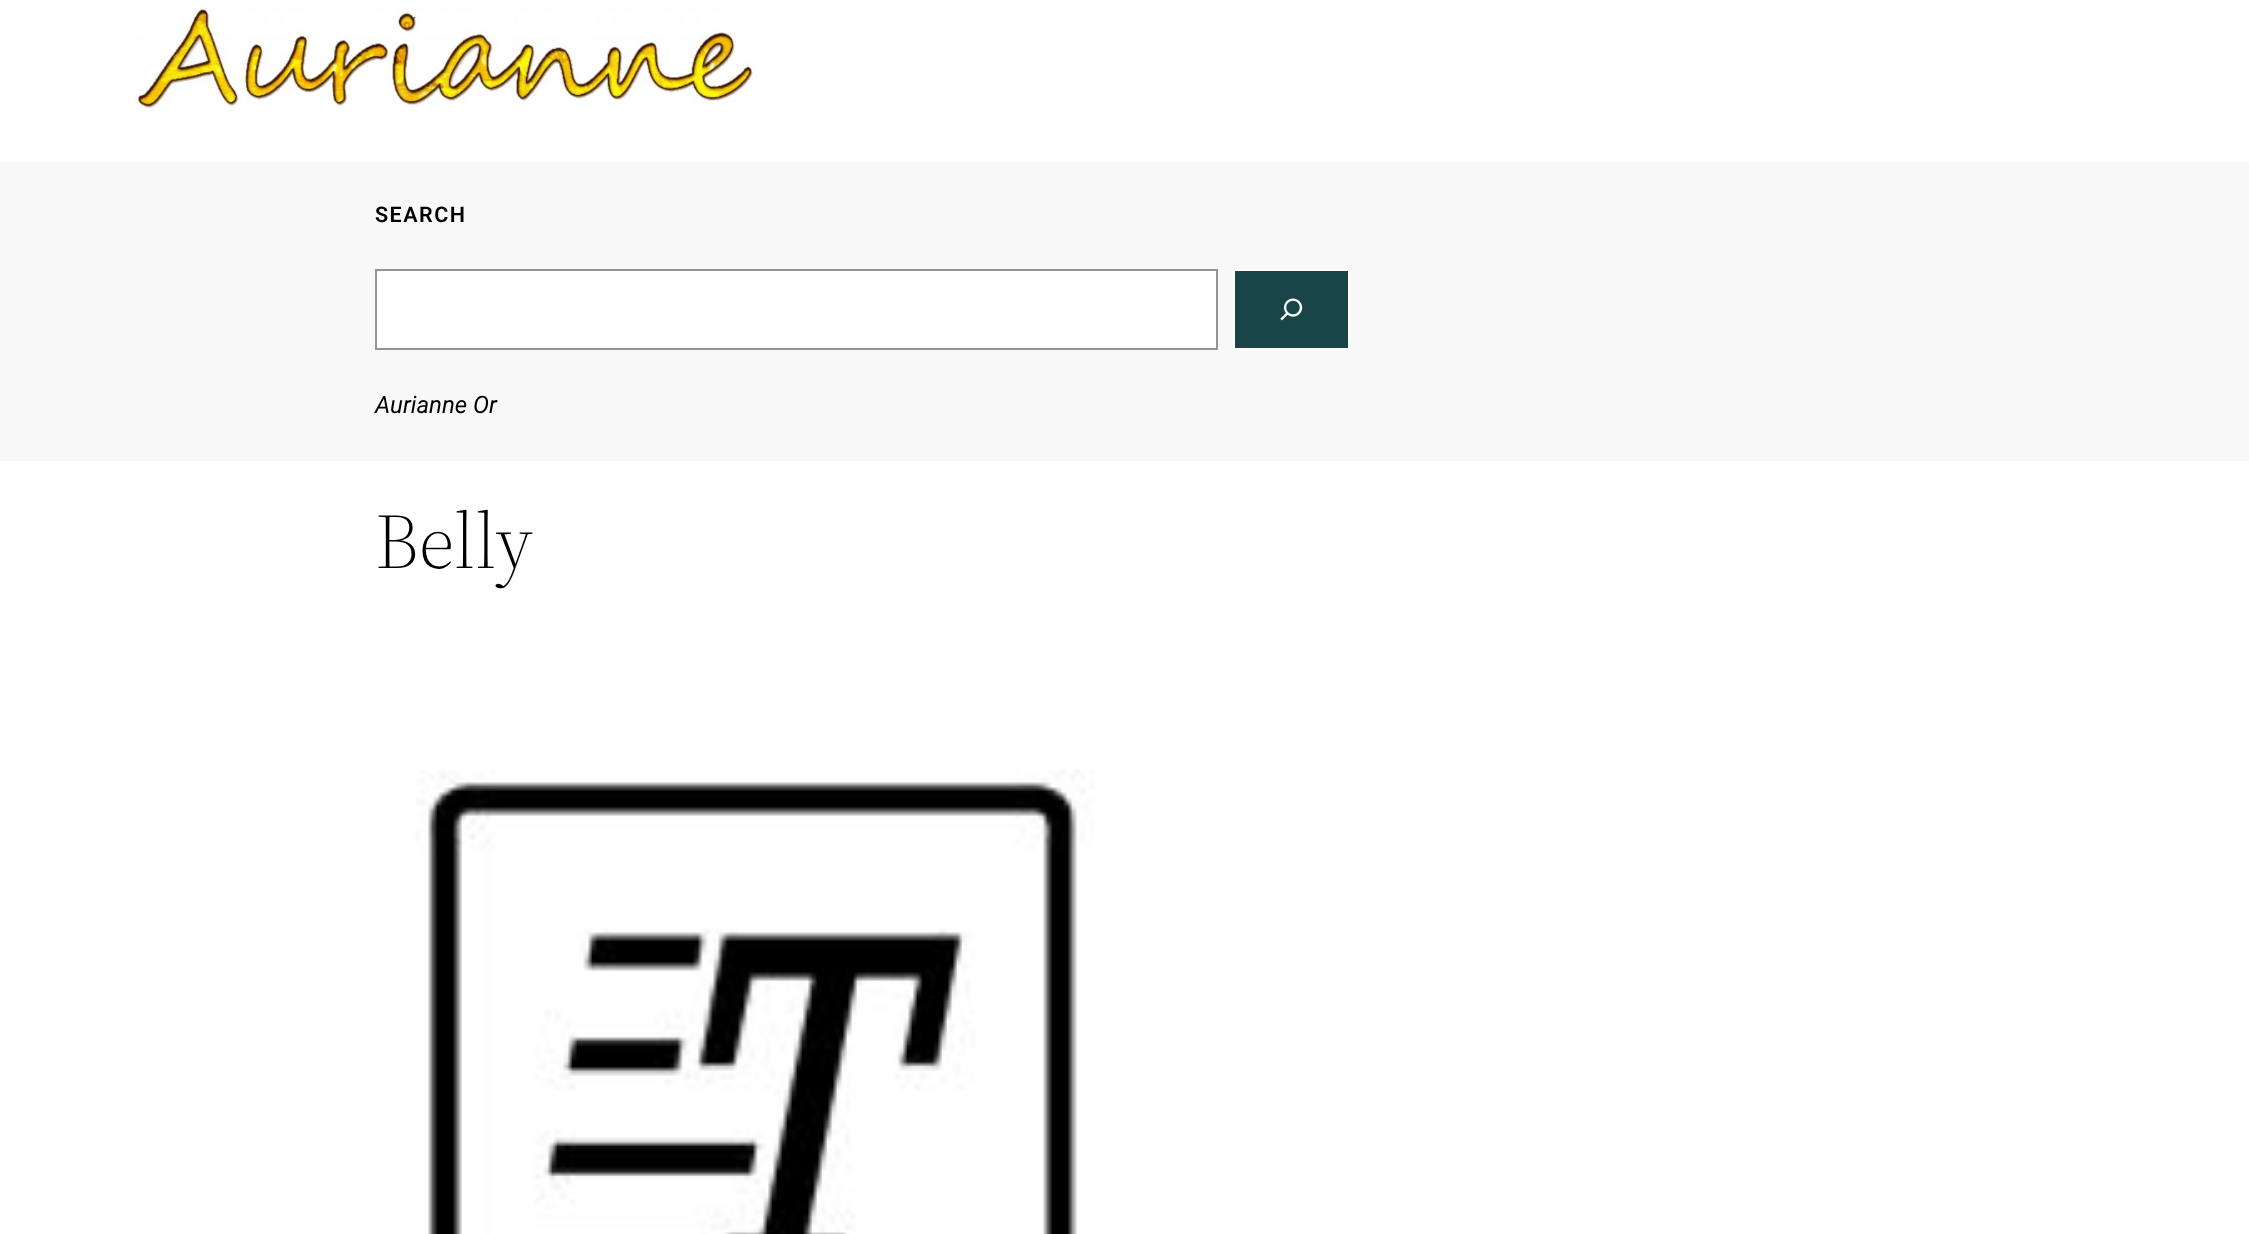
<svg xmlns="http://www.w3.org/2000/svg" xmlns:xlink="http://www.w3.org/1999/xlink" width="2249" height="1234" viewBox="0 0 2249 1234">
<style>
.cls-1{font:600 21.5px Roboto;letter-spacing:1.5px;fill:#000000}
.cls-2{font:italic 24px Roboto;fill:#000000}
.cls-3{font:300 78px 'Source Serif 4';fill:#000000}
</style>
<rect width="100%" height="100%" fill="#ffffff"/>
<image xlink:href="image0.png" x="134" y="6" width="624" height="108"/>
<rect fill="#f8f8f8" x="0" y="162" width="2249" height="299"/>
<rect fill="#ffffff" stroke="#949494" stroke-width="2" x="376" y="270" width="841" height="79"/>
<rect fill="#1a4548" stroke="#ffffff" stroke-width="2" x="1234" y="270" width="115" height="79"/>
<image xlink:href="image1.png" x="1280" y="298" width="23" height="23"/>
<image xlink:href="image2.png" x="415" y="769" width="680" height="465"/>
<text class="cls-1" x="375" y="222">SEARCH</text>
<text class="cls-2" x="375" y="413">Aurianne Or</text>
<text class="cls-3" x="375" y="568">Belly</text>
</svg>
